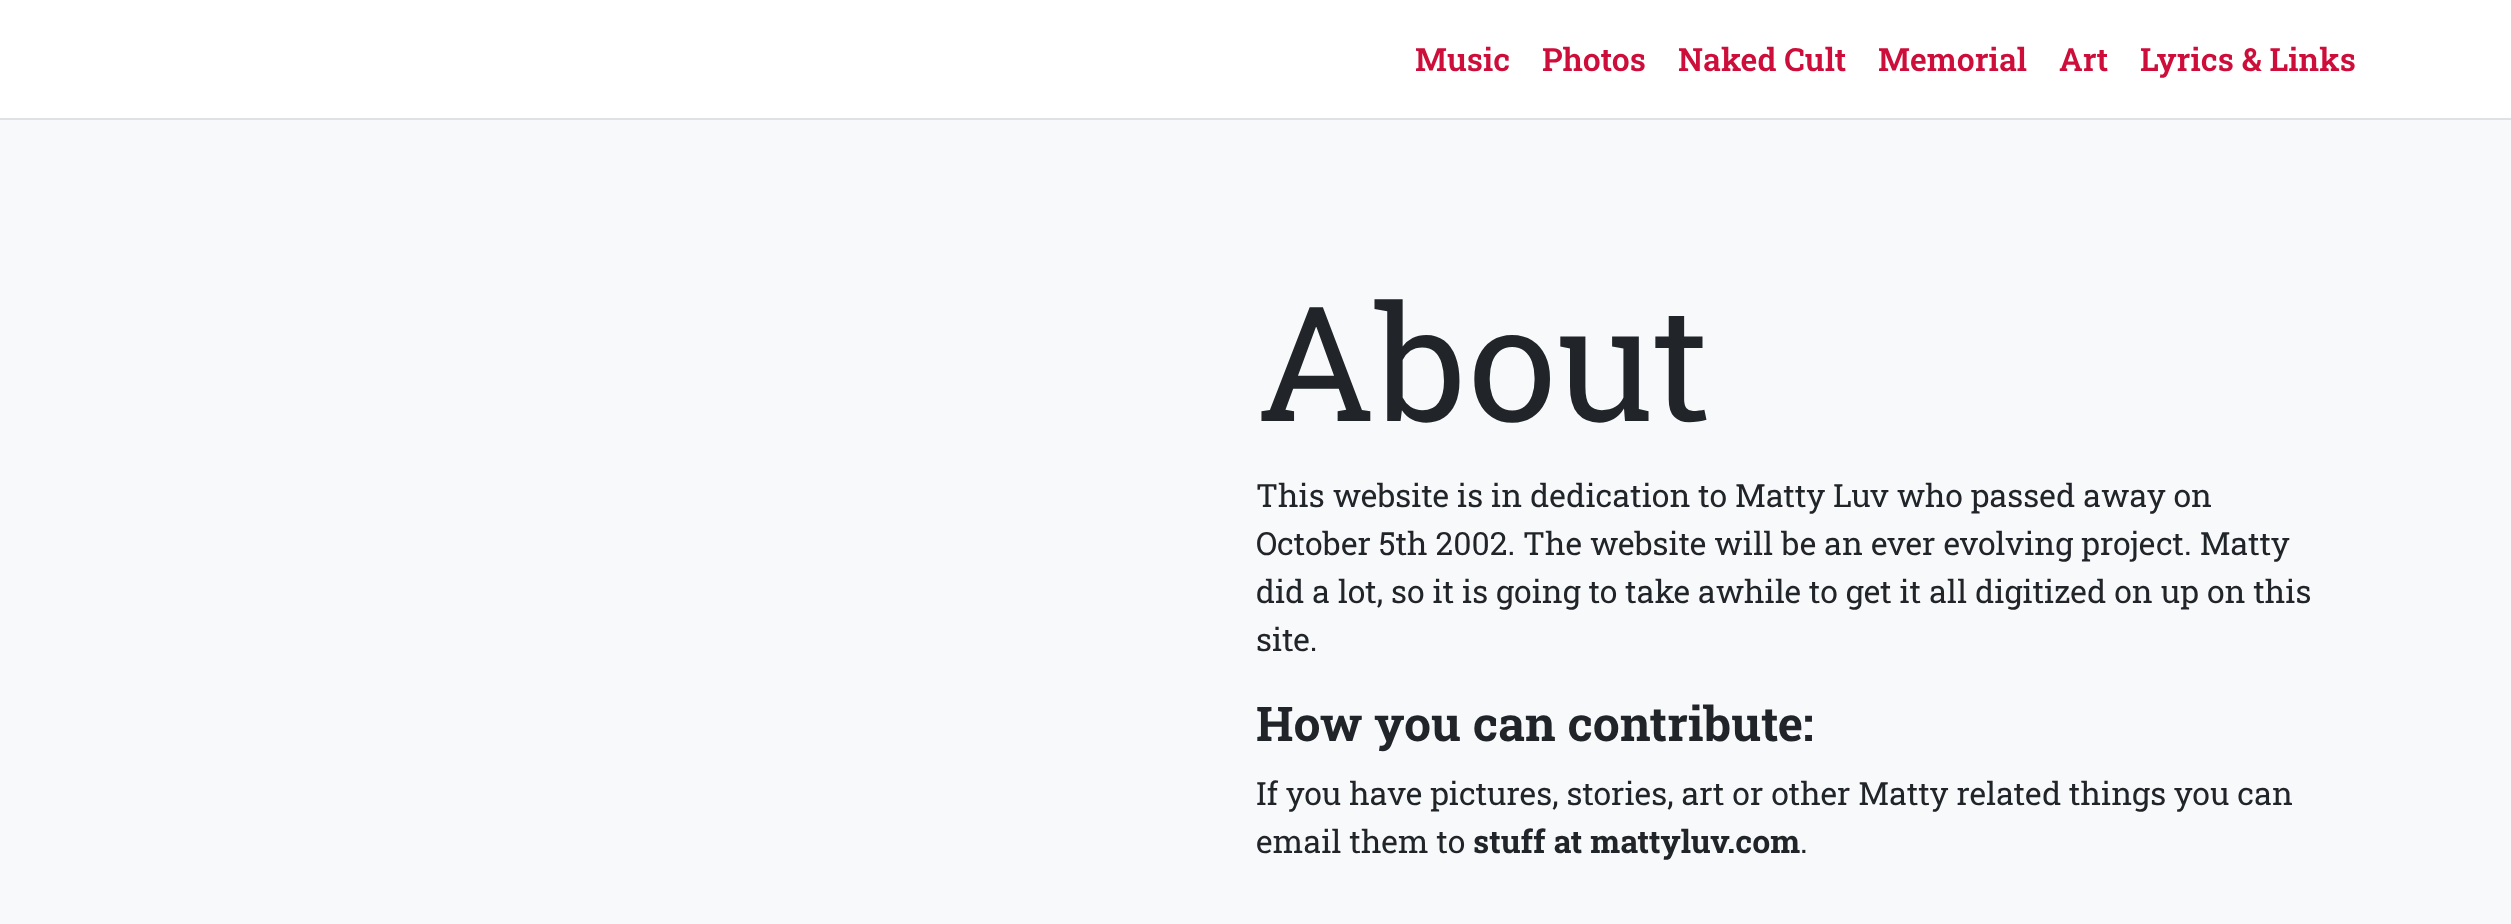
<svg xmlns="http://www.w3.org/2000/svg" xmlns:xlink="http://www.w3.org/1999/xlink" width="2511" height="924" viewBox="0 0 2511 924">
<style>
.cls-1{font:600 32px Roboto Slab;fill:#cd0e3b}
.cls-2{font:160px Roboto Slab;fill:#212529}
.cls-3{font:32px Roboto Slab;fill:#212529}
.cls-4{font:bold 48px Roboto Slab;fill:#212529}
.cls-5{font:bold 32px Roboto Slab;fill:#212529}
</style>
<rect width="100%" height="100%" fill="#f8f9fa"/>
<rect fill="#ffffff" x="0" y="0" width="2511" height="118"/>
<rect fill="#dee2e6" x="0" y="118" width="2511" height="2"/>
<text class="cls-1" x="1415" y="71">Music</text>
<text class="cls-1" x="1542" y="71">Photos</text>
<text class="cls-1" x="1678" y="71">Naked Cult</text>
<text class="cls-1" x="1878" y="71">Memorial</text>
<text class="cls-1" x="2059" y="71">Art</text>
<text class="cls-1" x="2140" y="71">Lyrics &amp; Links</text>
<text class="cls-2" x="1256" y="421">About</text>
<text class="cls-3"><tspan x="1256" y="507">This website is in dedication to Matty Luv who passed away on</tspan><tspan x="1256" y="555">October 5th 2002. The website will be an ever evolving project. Matty</tspan><tspan x="1256" y="603">did a lot, so it is going to take awhile to get it all digitized on up on this</tspan><tspan x="1256" y="651">site.</tspan></text>
<text class="cls-4" x="1256" y="741">How you can contribute:</text>
<text class="cls-3"><tspan x="1256" y="805">If you have pictures, stories, art or other Matty related things you can</tspan><tspan x="1256" y="853">email them to</tspan></text>
<text class="cls-5" x="1473" y="853">stuff at mattyluv.com</text>
<text class="cls-3" x="1800" y="853">.</text>
</svg>
